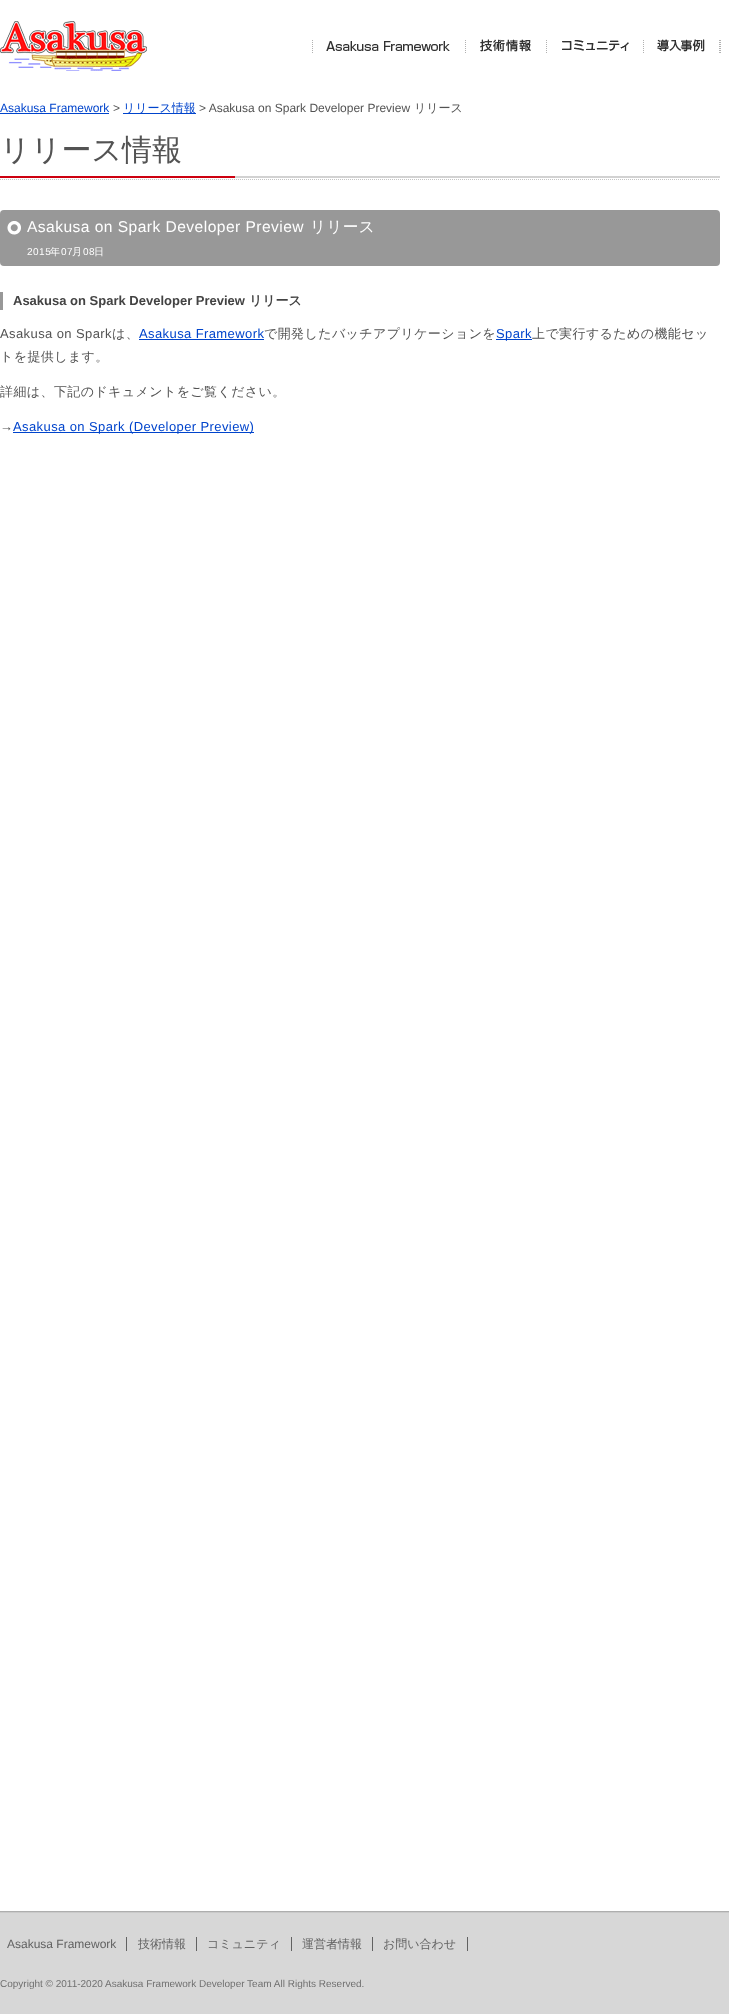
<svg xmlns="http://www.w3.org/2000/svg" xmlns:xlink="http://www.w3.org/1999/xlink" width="729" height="2014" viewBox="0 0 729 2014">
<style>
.cls-1{font:12px Liberation Sans;fill:#0044cc}
.cls-2{font:12px Liberation Sans;fill:#535353}
.cls-3{font:500 12px WenQuanYi Zen Hei;fill:#0044cc}
.cls-4{font:500 12px WenQuanYi Zen Hei;fill:#535353}
.cls-5{font:500 30px WenQuanYi Zen Hei;fill:#535353}
.cls-6{font:15.6px Liberation Sans;letter-spacing:0.45px;fill:#ffffff}
.cls-7{font:500 15.6px WenQuanYi Zen Hei;letter-spacing:0.45px;fill:#ffffff}
.cls-8{font:10px Liberation Sans;letter-spacing:0.5px;fill:#ffffff}
.cls-9{font:500 10px WenQuanYi Zen Hei;letter-spacing:0.5px;fill:#ffffff}
.cls-10{font:bold 13px Liberation Sans;fill:#434343}
.cls-11{font:bold 13px WenQuanYi Zen Hei;fill:#434343}
.cls-12{font:13px Liberation Sans;letter-spacing:0.4px;fill:#535353}
.cls-13{font:500 13px WenQuanYi Zen Hei;letter-spacing:0.4px;fill:#535353}
.cls-14{font:13px Liberation Sans;letter-spacing:0.4px;fill:#0044cc}
.cls-15{font:12px Liberation Sans;fill:#626262}
.cls-16{font:500 12px WenQuanYi Zen Hei;fill:#626262}
.cls-17{font:10px Liberation Sans;fill:#707070}
</style>
<rect width="100%" height="100%" fill="#ffffff"/>
<image xlink:href="image0.png" x="0" y="21" width="147" height="50"/>
<image xlink:href="image1.png" x="312" y="40" width="154" height="13"/>
<image xlink:href="image2.png" x="480" y="39" width="67" height="14"/>
<image xlink:href="image3.png" x="562" y="40" width="82" height="13"/>
<image xlink:href="image4.png" x="657" y="39" width="63" height="14"/>
<image xlink:href="image5.png" x="720" y="40" width="1" height="13"/>
<rect fill="#0044cc" x="0" y="113" width="109" height="1"/>
<rect fill="#0044cc" x="123" y="113" width="73" height="1"/>
<image xlink:href="image6.png" x="0" y="176" width="720" height="4"/>
<rect fill="#989898" x="0" y="210" width="720" height="56" rx="4"/>
<image xlink:href="image7.png" x="7" y="221" width="14" height="14"/>
<rect fill="#989898" x="0" y="292" width="3" height="18"/>
<rect fill="#0044cc" x="139" y="339" width="125" height="1"/>
<rect fill="#0044cc" x="496" y="339" width="36" height="1"/>
<rect fill="#0044cc" x="13" y="432" width="241" height="1"/>
<rect fill="#d7d7d7" x="0" y="1913" width="729" height="101"/>
<image xlink:href="image8.png" x="0" y="1911" width="729" height="2"/>
<rect fill="#626262" x="126" y="1937" width="1" height="14"/>
<rect fill="#626262" x="196" y="1937" width="1" height="14"/>
<rect fill="#626262" x="291" y="1937" width="1" height="14"/>
<rect fill="#626262" x="372" y="1937" width="1" height="14"/>
<rect fill="#626262" x="467" y="1937" width="1" height="14"/>
<text class="cls-1" x="0" y="112">Asakusa Framework</text>
<text class="cls-2" x="113" y="112">&gt;</text>
<text class="cls-3" x="123" y="112">リリース情報</text>
<text class="cls-2" x="199" y="112">&gt; Asakusa on Spark Developer Preview</text>
<text class="cls-4" x="414" y="112">リリース</text>
<text class="cls-5" x="0" y="160">リリース情報</text>
<text class="cls-6" x="27" y="232">Asakusa on Spark Developer Preview</text>
<text class="cls-7" x="310" y="232">リリース</text>
<text class="cls-8" x="27" y="255">2015</text>
<text class="cls-9" x="50" y="255">年</text>
<text class="cls-8" x="61" y="255">07</text>
<text class="cls-9" x="72" y="255">月</text>
<text class="cls-8" x="83" y="255">08</text>
<text class="cls-9" x="94" y="255">日</text>
<text class="cls-10" x="13" y="305">Asakusa on Spark Developer Preview</text>
<text class="cls-11" x="249" y="305">リリース</text>
<text class="cls-12" x="0" y="338">Asakusa on Spark</text>
<text class="cls-13" x="112" y="338">は、</text>
<text class="cls-14" x="139" y="338">Asakusa Framework</text>
<text class="cls-13" x="264" y="338">で開発したバッチアプリケーションを</text>
<text class="cls-14" x="496" y="338">Spark</text>
<text class="cls-13" x="532" y="338">上で実行するための機能セッ</text>
<text class="cls-13" x="0" y="361">トを提供します。</text>
<text class="cls-13" x="0" y="396">詳細は、下記のドキュメントをご覧ください。</text>
<text class="cls-12" x="0" y="431">→</text>
<text class="cls-14" x="13" y="431">Asakusa on Spark (Developer Preview)</text>
<text class="cls-15" x="7" y="1948">Asakusa Framework</text>
<text class="cls-16" x="138" y="1948">技術情報</text>
<text class="cls-16" x="207" y="1948">コミュニティ</text>
<text class="cls-16" x="302" y="1948">運営者情報</text>
<text class="cls-16" x="383" y="1948">お問い合わせ</text>
<text class="cls-17" x="0" y="1987">Copyright © 2011-2020 Asakusa Framework Developer Team All Rights Reserved.</text>
</svg>
